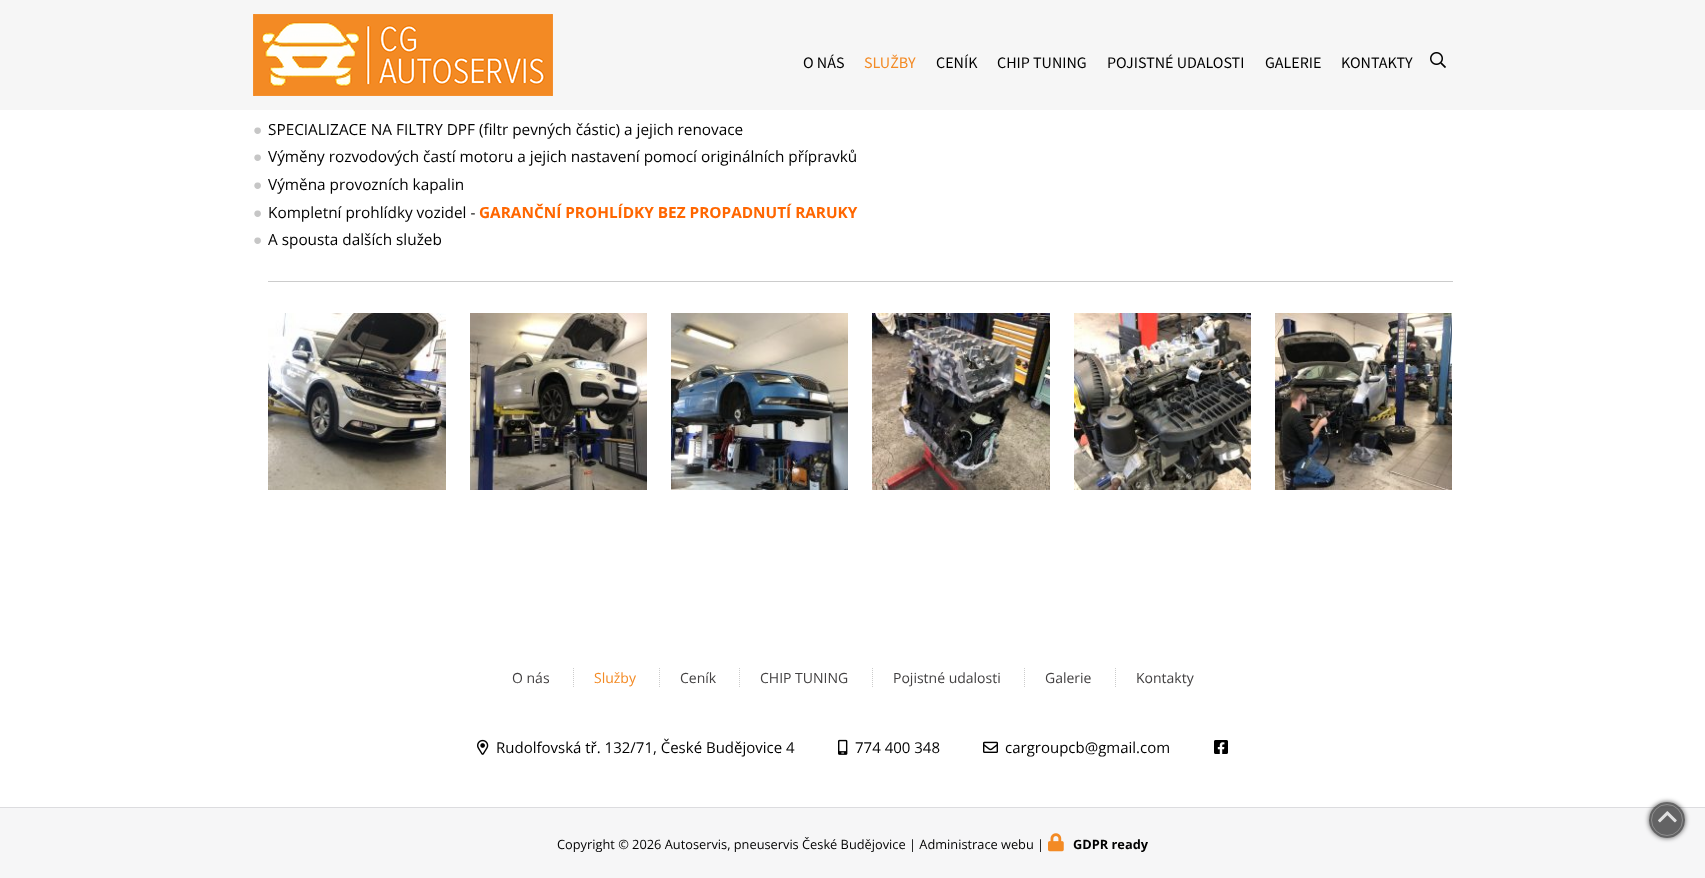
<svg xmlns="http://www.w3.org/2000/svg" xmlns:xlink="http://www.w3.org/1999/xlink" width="1705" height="878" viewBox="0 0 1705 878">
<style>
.cls-1{font:16px Source Sans Pro;fill:#000000}
.cls-2{font:16px Source Sans Pro;fill:#f38a24}
.cls-3{font:15.35px Liberation Serif;fill:#c6c6c6}
.cls-4{font:15.35px Open Sans;fill:#000000}
.cls-5{font:bold 15.35px Open Sans;fill:#ff6600}
.cls-6{font:14px Open Sans;fill:#424041}
.cls-7{font:14px Open Sans;fill:#f38a24}
.cls-8{font:15px Open Sans;fill:#000000}
.cls-9{font:12.8px Open Sans;fill:#000000}
.cls-10{font:bold 12.8px Open Sans;fill:#000000}
</style>
<defs>
<clipPath id="clip1"><path d="M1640 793H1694V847H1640ZM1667 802C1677 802 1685 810 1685 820C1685 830 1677 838 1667 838C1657 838 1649 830 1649 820C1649 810 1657 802 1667 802Z" clip-rule="evenodd"/></clipPath>
</defs>
<rect width="100%" height="100%" fill="#ffffff"/>
<rect fill="#f6f6f6" x="0" y="0" width="1705" height="110"/>
<image xlink:href="image0.png" x="253" y="14" width="300" height="82"/>
<image xlink:href="image1.png" x="1430" y="52" width="16" height="16"/>
<rect fill="#cccccc" x="268" y="281" width="1185" height="1"/>
<image xlink:href="image2.png" x="268" y="313" width="178" height="177"/>
<image xlink:href="image3.png" x="470" y="313" width="177" height="177"/>
<image xlink:href="image4.png" x="671" y="313" width="177" height="177"/>
<image xlink:href="image5.png" x="872" y="313" width="178" height="177"/>
<image xlink:href="image6.png" x="1074" y="313" width="177" height="177"/>
<image xlink:href="image7.png" x="1275" y="313" width="177" height="177"/>
<path fill="none" stroke="#cccccc" stroke-dasharray="1 1" d="M573.5 668V687"/>
<path fill="none" stroke="#cccccc" stroke-dasharray="1 1" d="M659.5 668V687"/>
<path fill="none" stroke="#cccccc" stroke-dasharray="1 1" d="M739.5 668V687"/>
<path fill="none" stroke="#cccccc" stroke-dasharray="1 1" d="M872.5 668V687"/>
<path fill="none" stroke="#cccccc" stroke-dasharray="1 1" d="M1024.5 668V687"/>
<path fill="none" stroke="#cccccc" stroke-dasharray="1 1" d="M1115.5 668V687"/>
<image xlink:href="image8.png" x="477" y="739" width="12" height="16"/>
<image xlink:href="image9.png" x="838" y="739" width="10" height="16"/>
<image xlink:href="image10.png" x="983" y="741" width="15" height="12"/>
<image xlink:href="image11.png" x="1214" y="740" width="14" height="14"/>
<rect fill="#f6f6f7" x="0" y="808" width="1705" height="70"/>
<rect fill="#dcdcdf" x="0" y="807" width="1705" height="1"/>
<image xlink:href="image12.png" x="1048" y="833" width="16" height="19"/>
<g clip-path="url(#clip1)">
<rect fill="#000000" fill-opacity="0.64" filter="blur(2.5px)" x="1649" y="802" width="36" height="36" rx="18"/>
</g>
<circle fill="#3f3f3f" fill-opacity="0.8" cx="1667" cy="820" r="18"/>
<circle fill="none" stroke="#999999" stroke-opacity="0.8" cx="1667" cy="820" r="15.5"/>
<image xlink:href="image13.png" x="1658" y="811" width="19" height="12"/>
<text class="cls-1" x="803" y="68">O NÁS</text>
<text class="cls-2" x="864" y="68">SLUŽBY</text>
<text class="cls-1" x="936" y="68">CENÍK</text>
<text class="cls-1" x="997" y="68">CHIP TUNING</text>
<text class="cls-1" x="1107" y="68">POJISTNÉ UDALOSTI</text>
<text class="cls-1" x="1265" y="68">GALERIE</text>
<text class="cls-1" x="1341" y="68">KONTAKTY</text>
<text class="cls-3" x="253" y="135">●</text>
<text class="cls-4" x="268" y="135">SPECIALIZACE NA FILTRY DPF (filtr pevných částic) a jejich renovace</text>
<text class="cls-3" x="253" y="162">●</text>
<text class="cls-4" x="268" y="162">Výměny rozvodových častí motoru a jejich nastavení pomocí originálních přípravků</text>
<text class="cls-3" x="253" y="190">●</text>
<text class="cls-4" x="268" y="190">Výměna provozních kapalin</text>
<text class="cls-3" x="253" y="218">●</text>
<text class="cls-4" x="268" y="218">Kompletní prohlídky vozidel -</text>
<text class="cls-5" x="479" y="218">GARANČNÍ PROHLÍDKY BEZ PROPADNUTÍ RARUKY</text>
<text class="cls-3" x="253" y="245">●</text>
<text class="cls-4" x="268" y="245">A spousta dalších služeb</text>
<text class="cls-6" x="512" y="683">O nás</text>
<text class="cls-7" x="594" y="683">Služby</text>
<text class="cls-6" x="680" y="683">Ceník</text>
<text class="cls-6" x="760" y="683">CHIP TUNING</text>
<text class="cls-6" x="893" y="683">Pojistné udalosti</text>
<text class="cls-6" x="1045" y="683">Galerie</text>
<text class="cls-6" x="1136" y="683">Kontakty</text>
<text class="cls-8" x="496" y="753">Rudolfovská tř. 132/71, České Budějovice 4</text>
<text class="cls-8" x="855" y="753">774 400 348</text>
<text class="cls-8" x="1005" y="753">cargroupcb@gmail.com</text>
<text class="cls-9" x="557" y="849">Copyright © 2026 Autoservis, pneuservis České Budějovice | Administrace webu |</text>
<text class="cls-10" x="1073" y="849">GDPR ready</text>
</svg>
